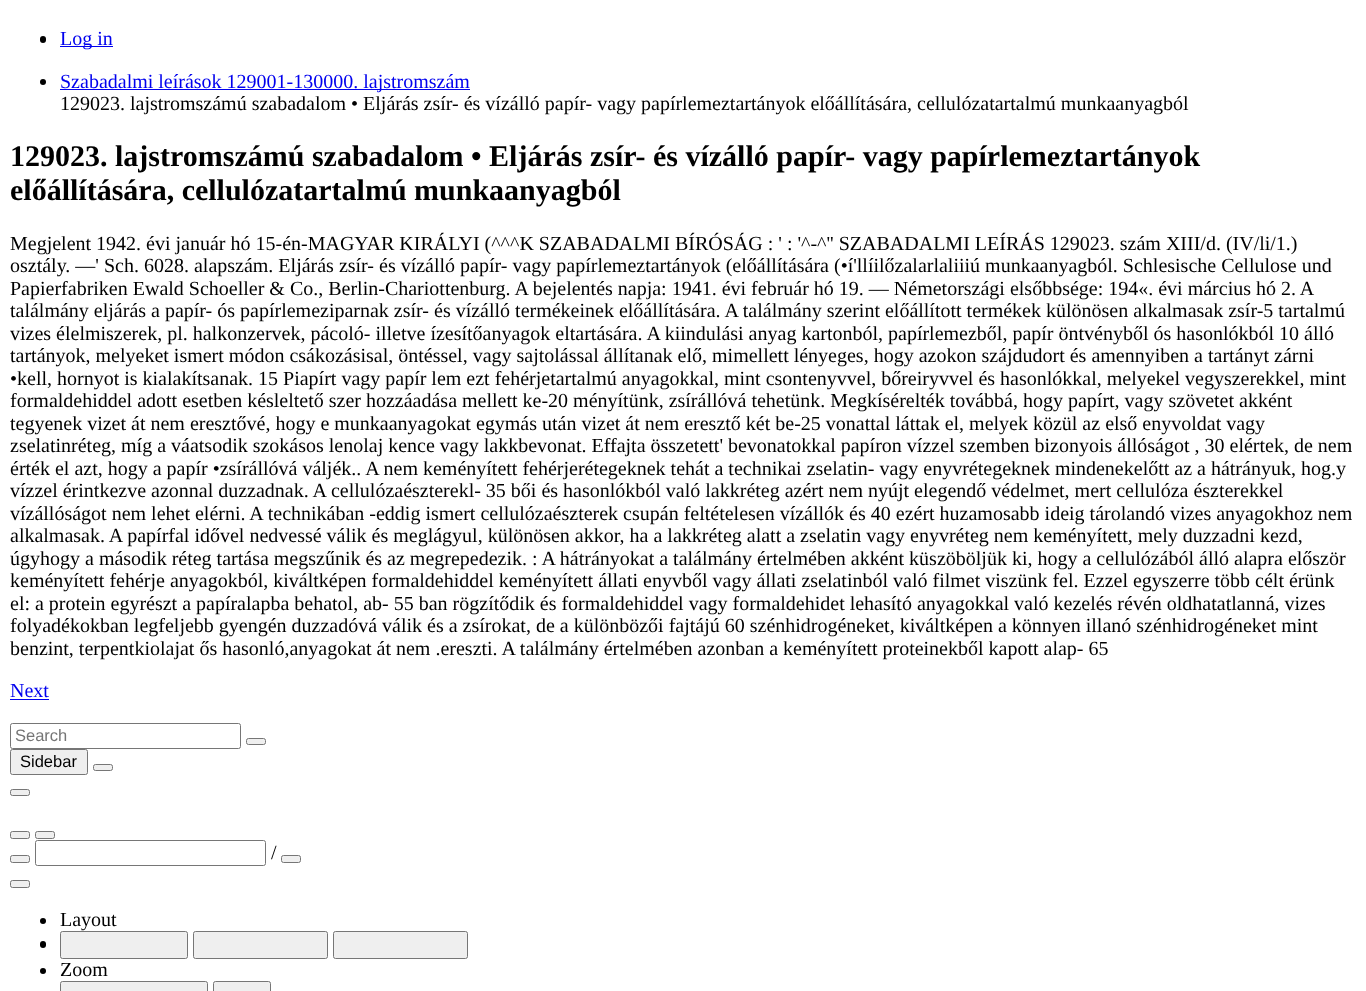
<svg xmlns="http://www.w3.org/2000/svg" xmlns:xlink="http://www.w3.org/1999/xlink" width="1366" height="991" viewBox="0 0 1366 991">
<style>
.cls-1{font:20px Liberation Serif;fill:#0000ee}
.cls-2{font:20px Liberation Serif;fill:#000000}
.cls-3{font:bold 30px Liberation Serif;fill:#000000}
.cls-4{font:16.5px Liberation Sans;fill:#757575}
.cls-5{font:16.5px Liberation Sans;fill:#000000}
</style>
<rect width="100%" height="100%" fill="#ffffff"/>
<rect fill="#000000" x="40" y="36" width="6" height="7" rx="3"/>
<rect fill="#0000ee" x="60" y="46" width="53" height="1"/>
<circle fill="#000000" cx="43" cy="82" r="3"/>
<rect fill="#0000ee" x="60" y="89" width="410" height="1"/>
<rect fill="#0000ee" x="10" y="699" width="39" height="1"/>
<rect fill="none" stroke="#767676" x="10.5" y="723.5" width="230" height="25" rx="2"/>
<rect fill="#efefef" stroke="#767676" x="246.5" y="738.5" width="19" height="6" rx="2"/>
<rect fill="#efefef" stroke="#767676" x="10.5" y="749.5" width="77" height="25" rx="2"/>
<rect fill="#efefef" stroke="#767676" x="93.5" y="764.5" width="19" height="6" rx="2"/>
<rect fill="#efefef" stroke="#767676" x="10.5" y="789.5" width="19" height="6" rx="2"/>
<rect fill="#efefef" stroke="#767676" x="10.5" y="831.5" width="19" height="7" rx="2"/>
<rect fill="#efefef" stroke="#767676" x="35.5" y="831.5" width="19" height="7" rx="2"/>
<rect fill="#efefef" stroke="#767676" x="10.5" y="855.5" width="19" height="7" rx="2"/>
<rect fill="none" stroke="#767676" x="35.5" y="840.5" width="230" height="25" rx="2"/>
<rect fill="#efefef" stroke="#767676" x="281.5" y="855.5" width="19" height="7" rx="2"/>
<rect fill="#efefef" stroke="#767676" x="10.5" y="880.5" width="19" height="7" rx="2"/>
<circle fill="#000000" cx="43" cy="921" r="3"/>
<rect fill="#000000" x="40" y="941" width="6" height="7" rx="3"/>
<rect fill="#efefef" stroke="#767676" x="60.5" y="931.5" width="127" height="27" rx="2"/>
<rect fill="#efefef" stroke="#767676" x="193.5" y="931.5" width="134" height="27" rx="2"/>
<rect fill="#efefef" stroke="#767676" x="333.5" y="931.5" width="134" height="27" rx="2"/>
<circle fill="#000000" cx="43" cy="971" r="3"/>
<rect fill="#efefef" stroke="#767676" x="60.5" y="981.5" width="147" height="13" rx="2"/>
<rect fill="#efefef" stroke="#767676" x="213.5" y="981.5" width="57" height="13" rx="2"/>
<text class="cls-1" x="60" y="45">Log in</text>
<text class="cls-1" x="60" y="88">Szabadalmi leírások 129001-130000. lajstromszám</text>
<text class="cls-2" x="60" y="110">129023. lajstromszámú szabadalom • Eljárás zsír- és vízálló papír- vagy papírlemeztartányok előállítására, cellulózatartalmú munkaanyagból</text>
<text class="cls-3"><tspan x="10" y="166">129023. lajstromszámú szabadalom • Eljárás zsír- és vízálló papír- vagy papírlemeztartányok</tspan><tspan x="10" y="200">előállítására, cellulózatartalmú munkaanyagból</tspan></text>
<text class="cls-2"><tspan x="10" y="250">Megjelent 1942. évi január hó 15-én-MAGYAR KIRÁLYI (^^^K SZABADALMI BÍRÓSÁG : ' : '^-^'' SZABADALMI LEÍRÁS 129023. szám XIII/d. (IV/li/1.)</tspan><tspan x="10" y="272">osztály. —' Sch. 6028. alapszám. Eljárás zsír- és vízálló papír- vagy papírlemeztartányok (előállítására (•í'llíilőzalarlaliiiú munkaanyagból. Schlesische Cellulose und</tspan><tspan x="10" y="295">Papierfabriken Ewald Schoeller &amp; Co., Berlin-Chariottenburg. A bejelentés napja: 1941. évi február hó 19. — Németországi elsőbbsége: 194«. évi március hó 2. A</tspan><tspan x="10" y="317">találmány eljárás a papír- ós papírlemeziparnak zsír- és vízálló termékeinek előállítására. A találmány szerint előállított termékek különösen alkalmasak zsír-5 tartalmú</tspan><tspan x="10" y="340">vizes élelmiszerek, pl. halkonzervek, pácoló- illetve ízesítőanyagok eltartására. A kiindulási anyag kartonból, papírlemezből, papír öntvényből ós hasonlókból 10 álló</tspan><tspan x="10" y="362">tartányok, melyeket ismert módon csákozásisal, öntéssel, vagy sajtolással állítanak elő, mimellett lényeges, hogy azokon szájdudort és amennyiben a tartányt zárni</tspan><tspan x="10" y="385">•kell, hornyot is kialakítsanak. 15 Piapírt vagy papír lem ezt fehérjetartalmú anyagokkal, mint csontenyvvel, bőreiryvvel és hasonlókkal, melyekel vegyszerekkel, mint</tspan><tspan x="10" y="407">formaldehiddel adott esetben késleltető szer hozzáadása mellett ke-20 ményítünk, zsírállóvá tehetünk. Megkísérelték továbbá, hogy papírt, vagy szövetet akként</tspan><tspan x="10" y="430">tegyenek vizet át nem eresztővé, hogy e munkaanyagokat egymás után vizet át nem eresztő két be-25 vonattal láttak el, melyek közül az első enyvoldat vagy</tspan><tspan x="10" y="452">zselatinréteg, míg a váatsodik szokásos lenolaj kence vagy lakkbevonat. Effajta összetett' bevonatokkal papíron vízzel szemben bizonyois állóságot , 30 elértek, de nem</tspan><tspan x="10" y="475">érték el azt, hogy a papír •zsírállóvá váljék.. A nem keményített fehérjerétegeknek tehát a technikai zselatin- vagy enyvrétegeknek mindenekelőtt az a hátrányuk, hog.y</tspan><tspan x="10" y="497">vízzel érintkezve azonnal duzzadnak. A cellulózaészterekl- 35 bői és hasonlókból való lakkréteg azért nem nyújt elegendő védelmet, mert cellulóza észterekkel</tspan><tspan x="10" y="520">vízállóságot nem lehet elérni. A technikában -eddig ismert cellulózaészterek csupán feltételesen vízállók és 40 ezért huzamosabb ideig tárolandó vizes anyagokhoz nem</tspan><tspan x="10" y="542">alkalmasak. A papírfal idővel nedvessé válik és meglágyul, különösen akkor, ha a lakkréteg alatt a zselatin vagy enyvréteg nem keményített, mely duzzadni kezd,</tspan><tspan x="10" y="565">úgyhogy a második réteg tartása megszűnik és az megrepedezik. : A hátrányokat a találmány értelmében akként küszöböljük ki, hogy a cellulózából álló alapra először</tspan><tspan x="10" y="587">keményített fehérje anyagokból, kiváltképen formaldehiddel keményített állati enyvből vagy állati zselatinból való filmet viszünk fel. Ezzel egyszerre több célt érünk</tspan><tspan x="10" y="610">el: a protein egyrészt a papíralapba behatol, ab- 55 ban rögzítődik és formaldehiddel vagy formaldehidet lehasító anyagokkal való kezelés révén oldhatatlanná, vizes</tspan><tspan x="10" y="632">folyadékokban legfeljebb gyengén duzzadóvá válik és a zsírokat, de a különbözői fajtájú 60 szénhidrogéneket, kiváltképen a könnyen illanó szénhidrogéneket mint</tspan><tspan x="10" y="655">benzint, terpentkiolajat ős hasonló,anyagokat át nem .ereszti. A találmány értelmében azonban a keményített proteinekből kapott alap- 65</tspan></text>
<text class="cls-1" x="10" y="697">Next</text>
<text class="cls-4" x="15" y="741">Search</text>
<text class="cls-5" x="20" y="767">Sidebar</text>
<text class="cls-2" x="271" y="859">/</text>
<text class="cls-2" x="60" y="926">Layout</text>
<text class="cls-2" x="60" y="976">Zoom</text>
</svg>
